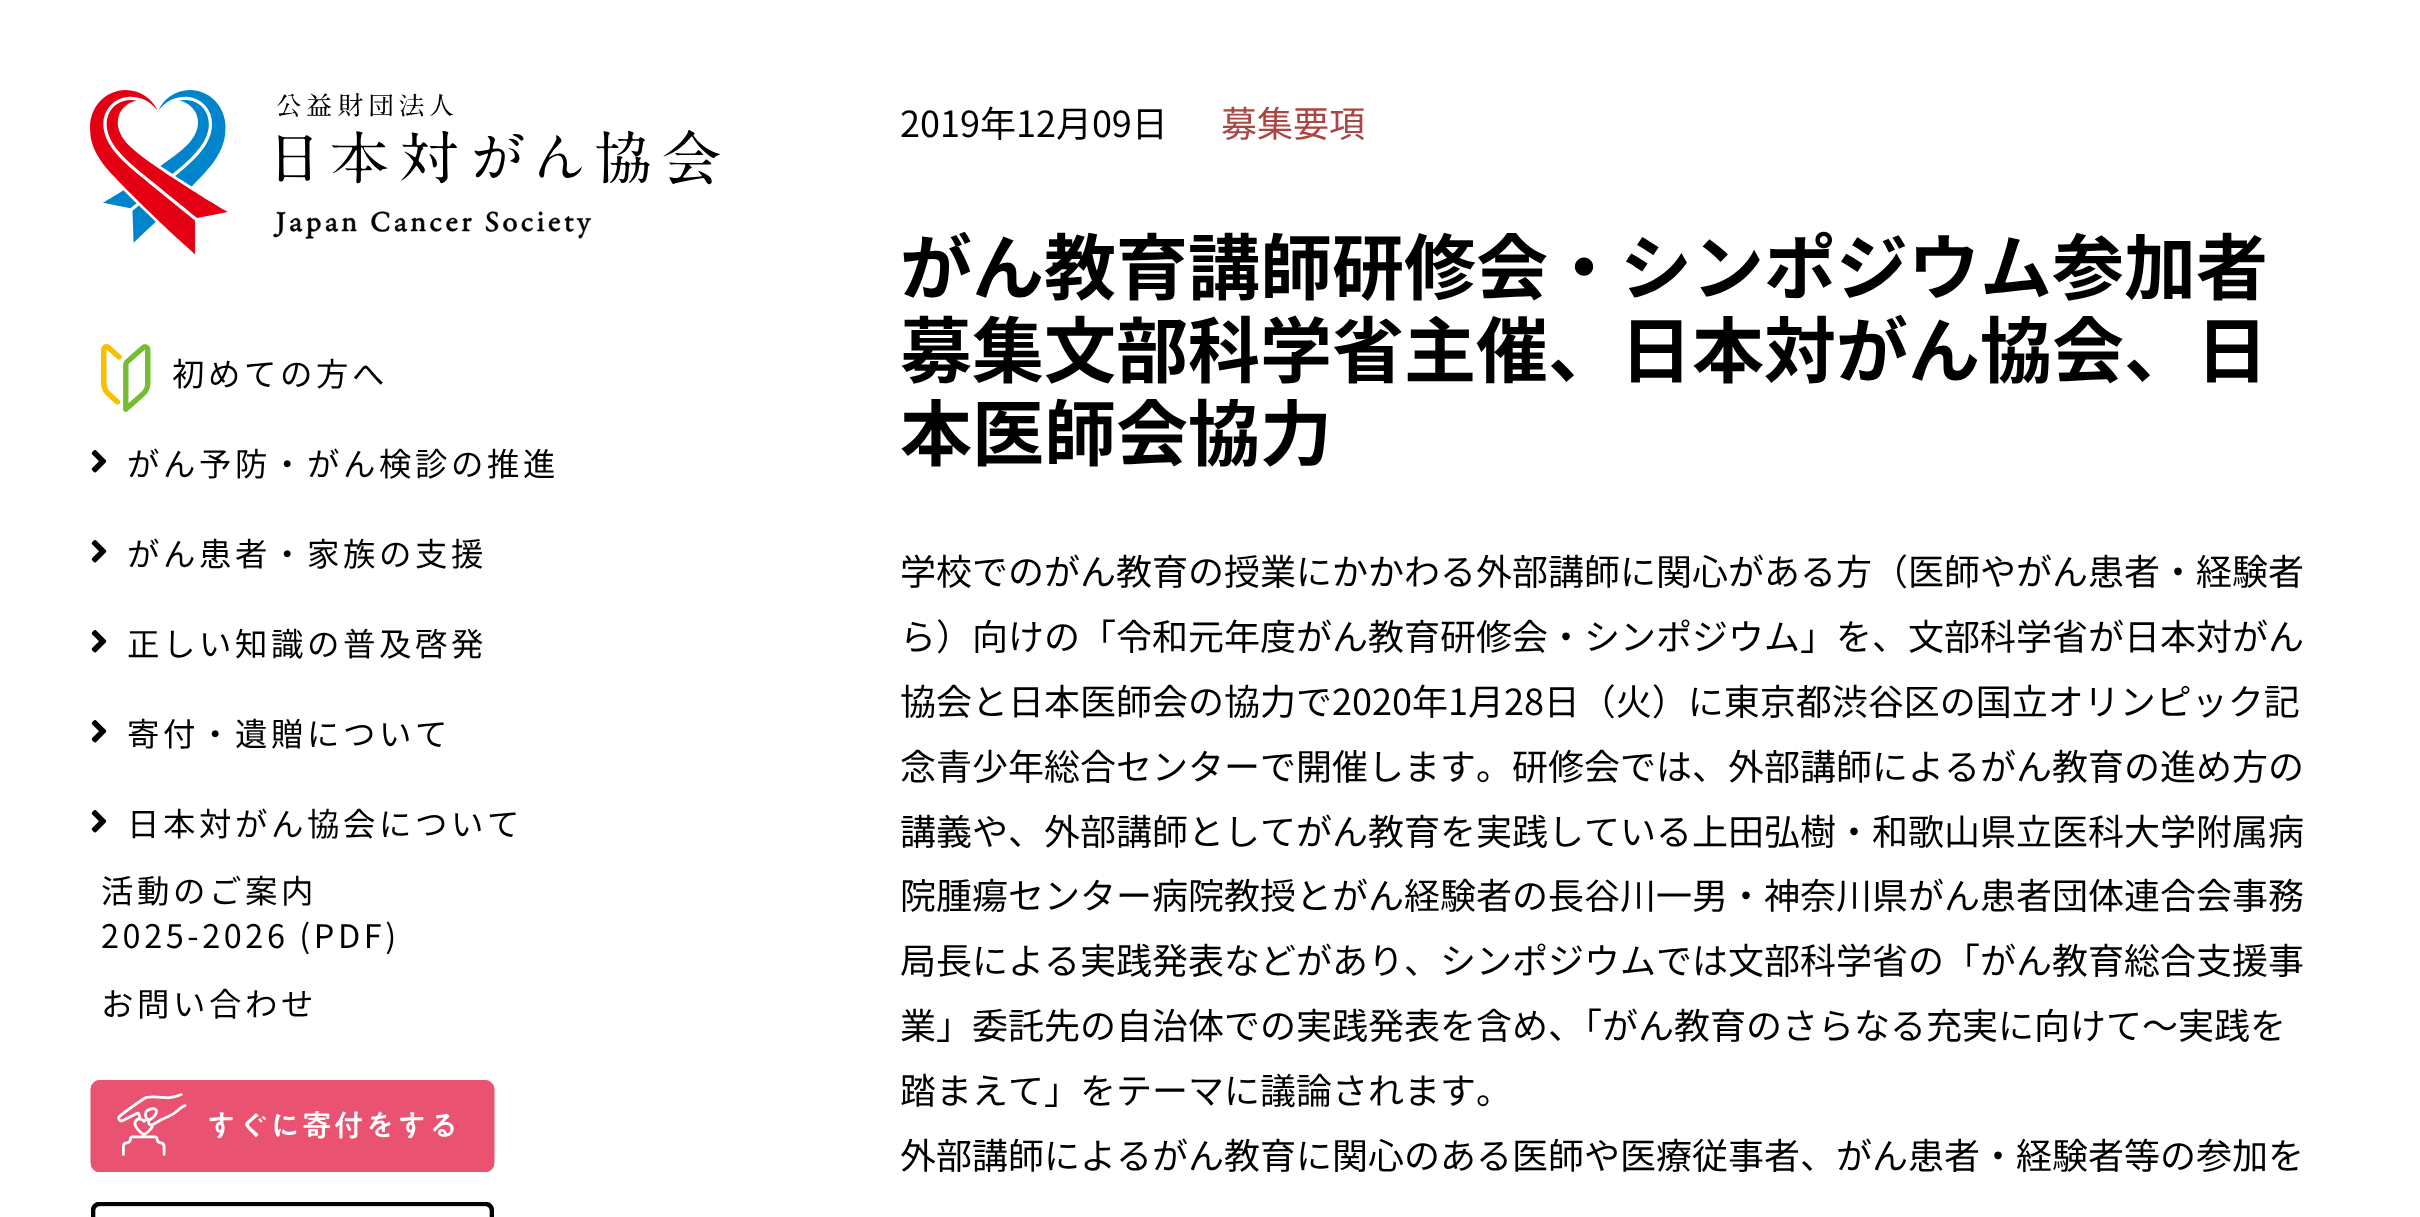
<svg xmlns="http://www.w3.org/2000/svg" xmlns:xlink="http://www.w3.org/1999/xlink" width="2420" height="1217" viewBox="0 0 2420 1217">
<style>*{font-kerning:none!important;font-variant-ligatures:none!important}</style>
<style>
.cls-1{font:32.4px Noto Sans JP;letter-spacing:3.6px;fill:#000000}
.cls-2{font:36px Noto Sans JP;fill:#000000}
.cls-3{font:36px Noto Sans JP;fill:#aa4542}
.cls-4{font:bold 72px Noto Sans JP;fill:#000000}
</style>
<rect width="100%" height="100%" fill="#ffffff"/>
<image xlink:href="image0.png" x="90" y="90" width="630" height="164"/>
<image xlink:href="image1.png" x="101" y="344" width="50" height="68"/>
<image xlink:href="image2.png" x="91" y="450" width="16" height="23"/>
<image xlink:href="image2.png" x="91" y="540" width="16" height="23"/>
<image xlink:href="image2.png" x="91" y="630" width="16" height="23"/>
<image xlink:href="image2.png" x="91" y="720" width="16" height="23"/>
<image xlink:href="image2.png" x="91" y="810" width="16" height="23"/>
<image xlink:href="image3.png" x="90" y="1080" width="405" height="92"/>
<image xlink:href="image4.png" x="91" y="1202" width="403" height="15"/>
<text class="cls-1" x="172" y="386">初めての方へ</text>
<text class="cls-1" x="127" y="476">がん予防・がん検診の推進</text>
<text class="cls-1" x="127" y="566">がん患者・家族の支援</text>
<text class="cls-1" x="127" y="656">正しい知識の普及啓発</text>
<text class="cls-1" x="127" y="746">寄付・遺贈について</text>
<text class="cls-1" x="127" y="836">日本対がん協会について</text>
<text class="cls-1"><tspan x="101" y="903">活動のご案内</tspan><tspan x="101" y="948">2025-2026 (PDF)</tspan></text>
<text class="cls-1" x="101" y="1016">お問い合わせ</text>
<text class="cls-2" x="900" y="137">2019年12月09日</text>
<text class="cls-3" x="1221" y="137">募集要項</text>
<text class="cls-4"><tspan x="900" y="294">がん教育講師研修会・シンポジウム参加者</tspan><tspan x="900" y="377">募集文部科学省主催、日本対がん協会、日</tspan><tspan x="900" y="460">本医師会協力</tspan></text>
<text class="cls-2"><tspan x="900" y="585">学校でのがん教育の授業にかかわる外部講師に関心がある方（医師やがん患者・経験者</tspan><tspan x="900" y="650">ら）向けの「令和元年度がん教育研修会・シンポジウム」を、文部科学省が日本対がん</tspan><tspan x="900" y="715">協会と日本医師会の協力で2020年1月28日（火）に東京都渋谷区の国立オリンピック記</tspan><tspan x="900" y="780">念青少年総合センターで開催します。研修会では、外部講師によ</tspan></text>
<text class="cls-2" x="1944" y="780">るがん教育の進め方の</text>
<text class="cls-2"><tspan x="900" y="845">講義や、外部講師としてがん教育を実践している上田弘樹・和歌山県立医科大学附属病</tspan><tspan x="900" y="909">院腫瘍センター病院教授とがん経験者の長谷川一男・神奈川県がん患者団体連合会事務</tspan><tspan x="900" y="974">局長による実践発表などがあり、シンポジウムでは文部科学省の「がん教育総合支援事</tspan><tspan x="900" y="1039">業」委託先の自治体での実践発表を含め、「がん教育のさらなる充実に向けて～実践を</tspan><tspan x="900" y="1104">踏まえて」をテーマに議論されます。</tspan><tspan x="900" y="1169">外部講師によるがん教育に関心のある医師や医療従事者、がん患者・経験者等の参加を</tspan></text>
</svg>
